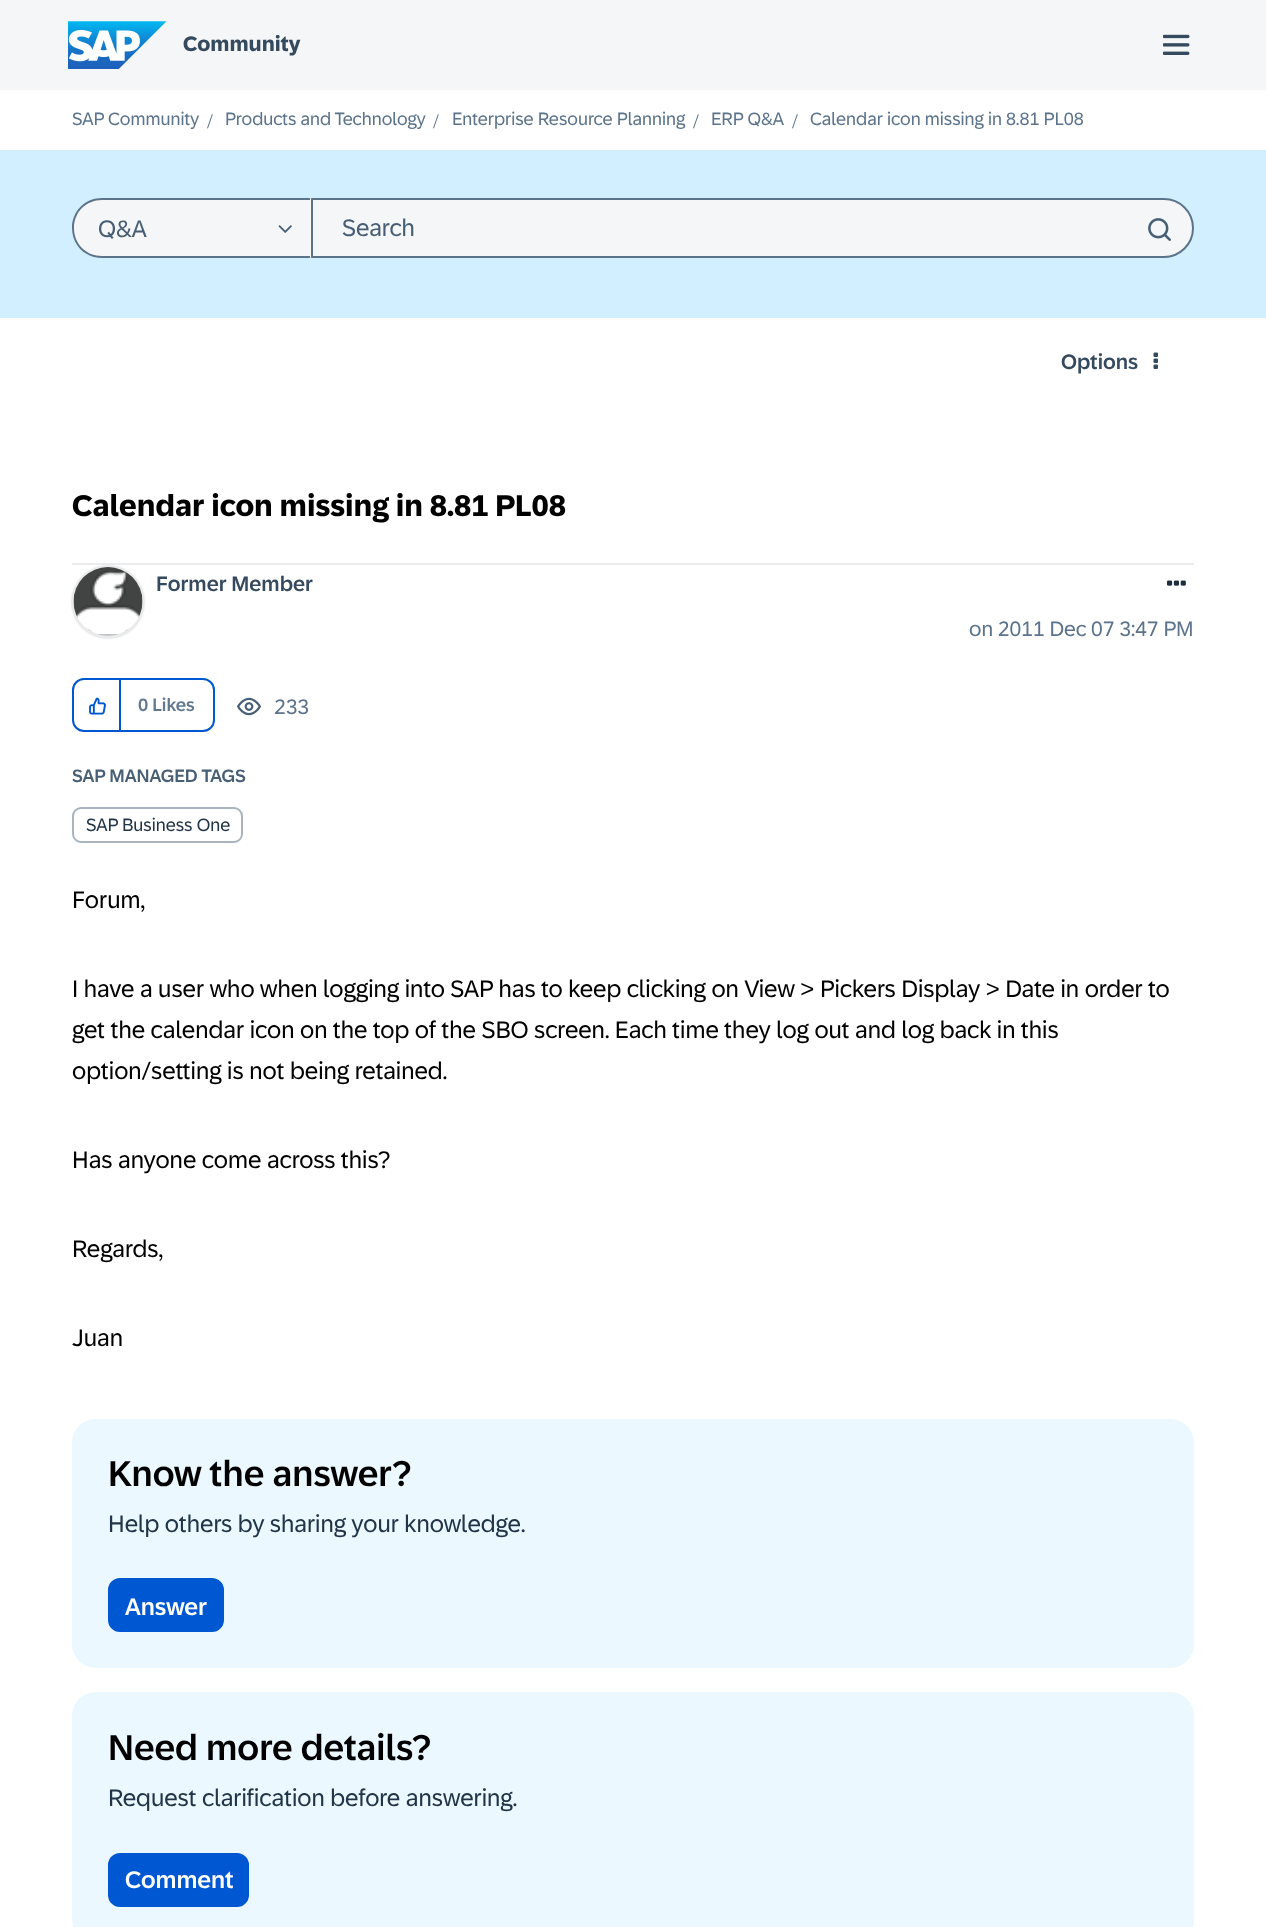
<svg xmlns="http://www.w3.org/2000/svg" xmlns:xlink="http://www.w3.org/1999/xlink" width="1266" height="1927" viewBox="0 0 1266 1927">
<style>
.cls-1{font:bold 21px '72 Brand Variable';fill:#354a5f}
.cls-2{font:18px '72 Brand Variable';fill:#5b738b}
.cls-3{font:21px Liberation Serif;fill:#5b738b}
.cls-4{font:24px '72 Brand Variable';fill:#475e75}
.cls-5{font:500 21px '72 Brand Variable';fill:#354a5f}
.cls-6{font:bold 30px '72 Brand Variable';fill:#000000}
.cls-7{font:21px '72 Brand Variable';fill:#5b738b}
.cls-8{font:500 18px '72 Brand Variable';fill:#617990}
.cls-9{font:500 18px '72 Brand Variable';fill:#475e75}
.cls-10{font:18px '72 Brand Variable';fill:#223548}
.cls-11{font:24px '72 Brand Variable';fill:#000000}
.cls-12{font:500 36px '72 Brand Variable';fill:#000000}
.cls-13{font:24px '72 Brand Variable';fill:#223548}
.cls-14{font:500 24px '72 Brand Variable';fill:#ffffff}
</style>
<rect width="100%" height="100%" fill="#ffffff"/>
<rect fill="#f5f6f7" x="0" y="0" width="1266" height="90"/>
<image xlink:href="image0.png" x="68" y="21" width="99" height="48"/>
<image xlink:href="image1.png" x="1163" y="34" width="27" height="21"/>
<rect fill="#d1efff" x="0" y="150" width="1266" height="168"/>
<path fill="#f5f6f7" d="M102 198H311V258H102C85.5 258 72 244.5 72 228C72 211.5 85.5 198 102 198Z"/>
<path fill="#5b738b" fill-rule="evenodd" d="M102 198H310V258H102C85 258 72 245 72 228C72 211 85 198 102 198ZM102 200H310V256H102C86 256 74 244 74 228C74 212 86 200 102 200Z"/>
<image xlink:href="image2.png" x="278" y="225" width="14" height="8"/>
<path fill="#f5f6f7" stroke="#5b738b" stroke-width="2" d="M312 199H1164C1180 199 1193 212 1193 228C1193 244 1180 257 1164 257H312Z"/>
<image xlink:href="image3.png" x="1148" y="218" width="23" height="23"/>
<image xlink:href="image4.png" x="1153" y="352" width="5" height="17"/>
<rect fill="#eaecee" x="72" y="563" width="1122" height="2"/>
<rect fill="#c4c4c4" filter="blur(1px)" x="72" y="566" width="72" height="72" rx="36"/>
<circle fill="none" stroke="#eaecee" stroke-width="2" cx="108" cy="602" r="35"/>
<image xlink:href="image5.png" x="73" y="567" width="70" height="67"/>
<image xlink:href="image6.png" x="1167" y="580" width="19" height="6"/>
<rect fill="none" stroke="#0057d2" stroke-width="2" x="73" y="679" width="141" height="52" rx="11"/>
<rect fill="#0057d2" x="119" y="680" width="2" height="52"/>
<image xlink:href="image7.png" x="89" y="697" width="17" height="18"/>
<image xlink:href="image8.png" x="237" y="697" width="24" height="19"/>
<rect fill="none" stroke="#a9b4be" stroke-width="2" x="73" y="808" width="169" height="34" rx="8"/>
<rect fill="#ebf8ff" x="72" y="1419" width="1122" height="249" rx="24"/>
<rect fill="#0057d2" stroke="#0057d2" stroke-width="2" x="109" y="1579" width="114" height="52" rx="11"/>
<rect fill="#ebf8ff" x="72" y="1692" width="1122" height="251" rx="24"/>
<rect fill="#0057d2" stroke="#0057d2" stroke-width="2" x="109" y="1854" width="139" height="52" rx="11"/>
<text class="cls-1" x="183" y="51">Community</text>
<text class="cls-2" x="72" y="125">SAP Community</text>
<text class="cls-3" x="207" y="128">/</text>
<text class="cls-2" x="225" y="125">Products and Technology</text>
<text class="cls-3" x="433" y="128">/</text>
<text class="cls-2" x="452" y="125">Enterprise Resource Planning</text>
<text class="cls-3" x="693" y="128">/</text>
<text class="cls-2" x="711" y="125">ERP Q&amp;A</text>
<text class="cls-3" x="792" y="128">/</text>
<text class="cls-2" x="810" y="125">Calendar icon missing in 8.81 PL08</text>
<text class="cls-4" x="98" y="237">Q&amp;A</text>
<text class="cls-4" x="342" y="236">Search</text>
<text class="cls-5" x="1061" y="369">Options</text>
<text class="cls-6" x="72" y="516">Calendar icon missing in 8.81 PL08</text>
<text class="cls-5" x="156" y="591">Former Member</text>
<text class="cls-7" x="969" y="636">on 2011 Dec 07 3:47 PM</text>
<text class="cls-8" x="138" y="711">0 Likes</text>
<text class="cls-7" x="274" y="714">233</text>
<text class="cls-9" x="72" y="782">SAP MANAGED TAGS</text>
<text class="cls-10" x="86" y="831">SAP Business One</text>
<text class="cls-11" x="72" y="908">Forum,</text>
<text class="cls-11"><tspan x="72" y="997">I have a user who when logging into SAP has to keep clicking on View &gt; Pickers Display &gt; Date in order to</tspan><tspan x="72" y="1038">get the calendar icon on the top of the SBO screen. Each time they log out and log back in this</tspan><tspan x="72" y="1079">option/setting is not being retained.</tspan></text>
<text class="cls-11" x="72" y="1168">Has anyone come across this?</text>
<text class="cls-11" x="72" y="1257">Regards,</text>
<text class="cls-11" x="72" y="1346">Juan</text>
<text class="cls-12" x="108" y="1486">Know the answer?</text>
<text class="cls-13" x="108" y="1532">Help others by sharing your knowledge.</text>
<text class="cls-14" x="125" y="1615">Answer</text>
<text class="cls-12" x="108" y="1760">Need more details?</text>
<text class="cls-13" x="108" y="1806">Request clarification before answering.</text>
<text class="cls-14" x="125" y="1888">Comment</text>
</svg>
